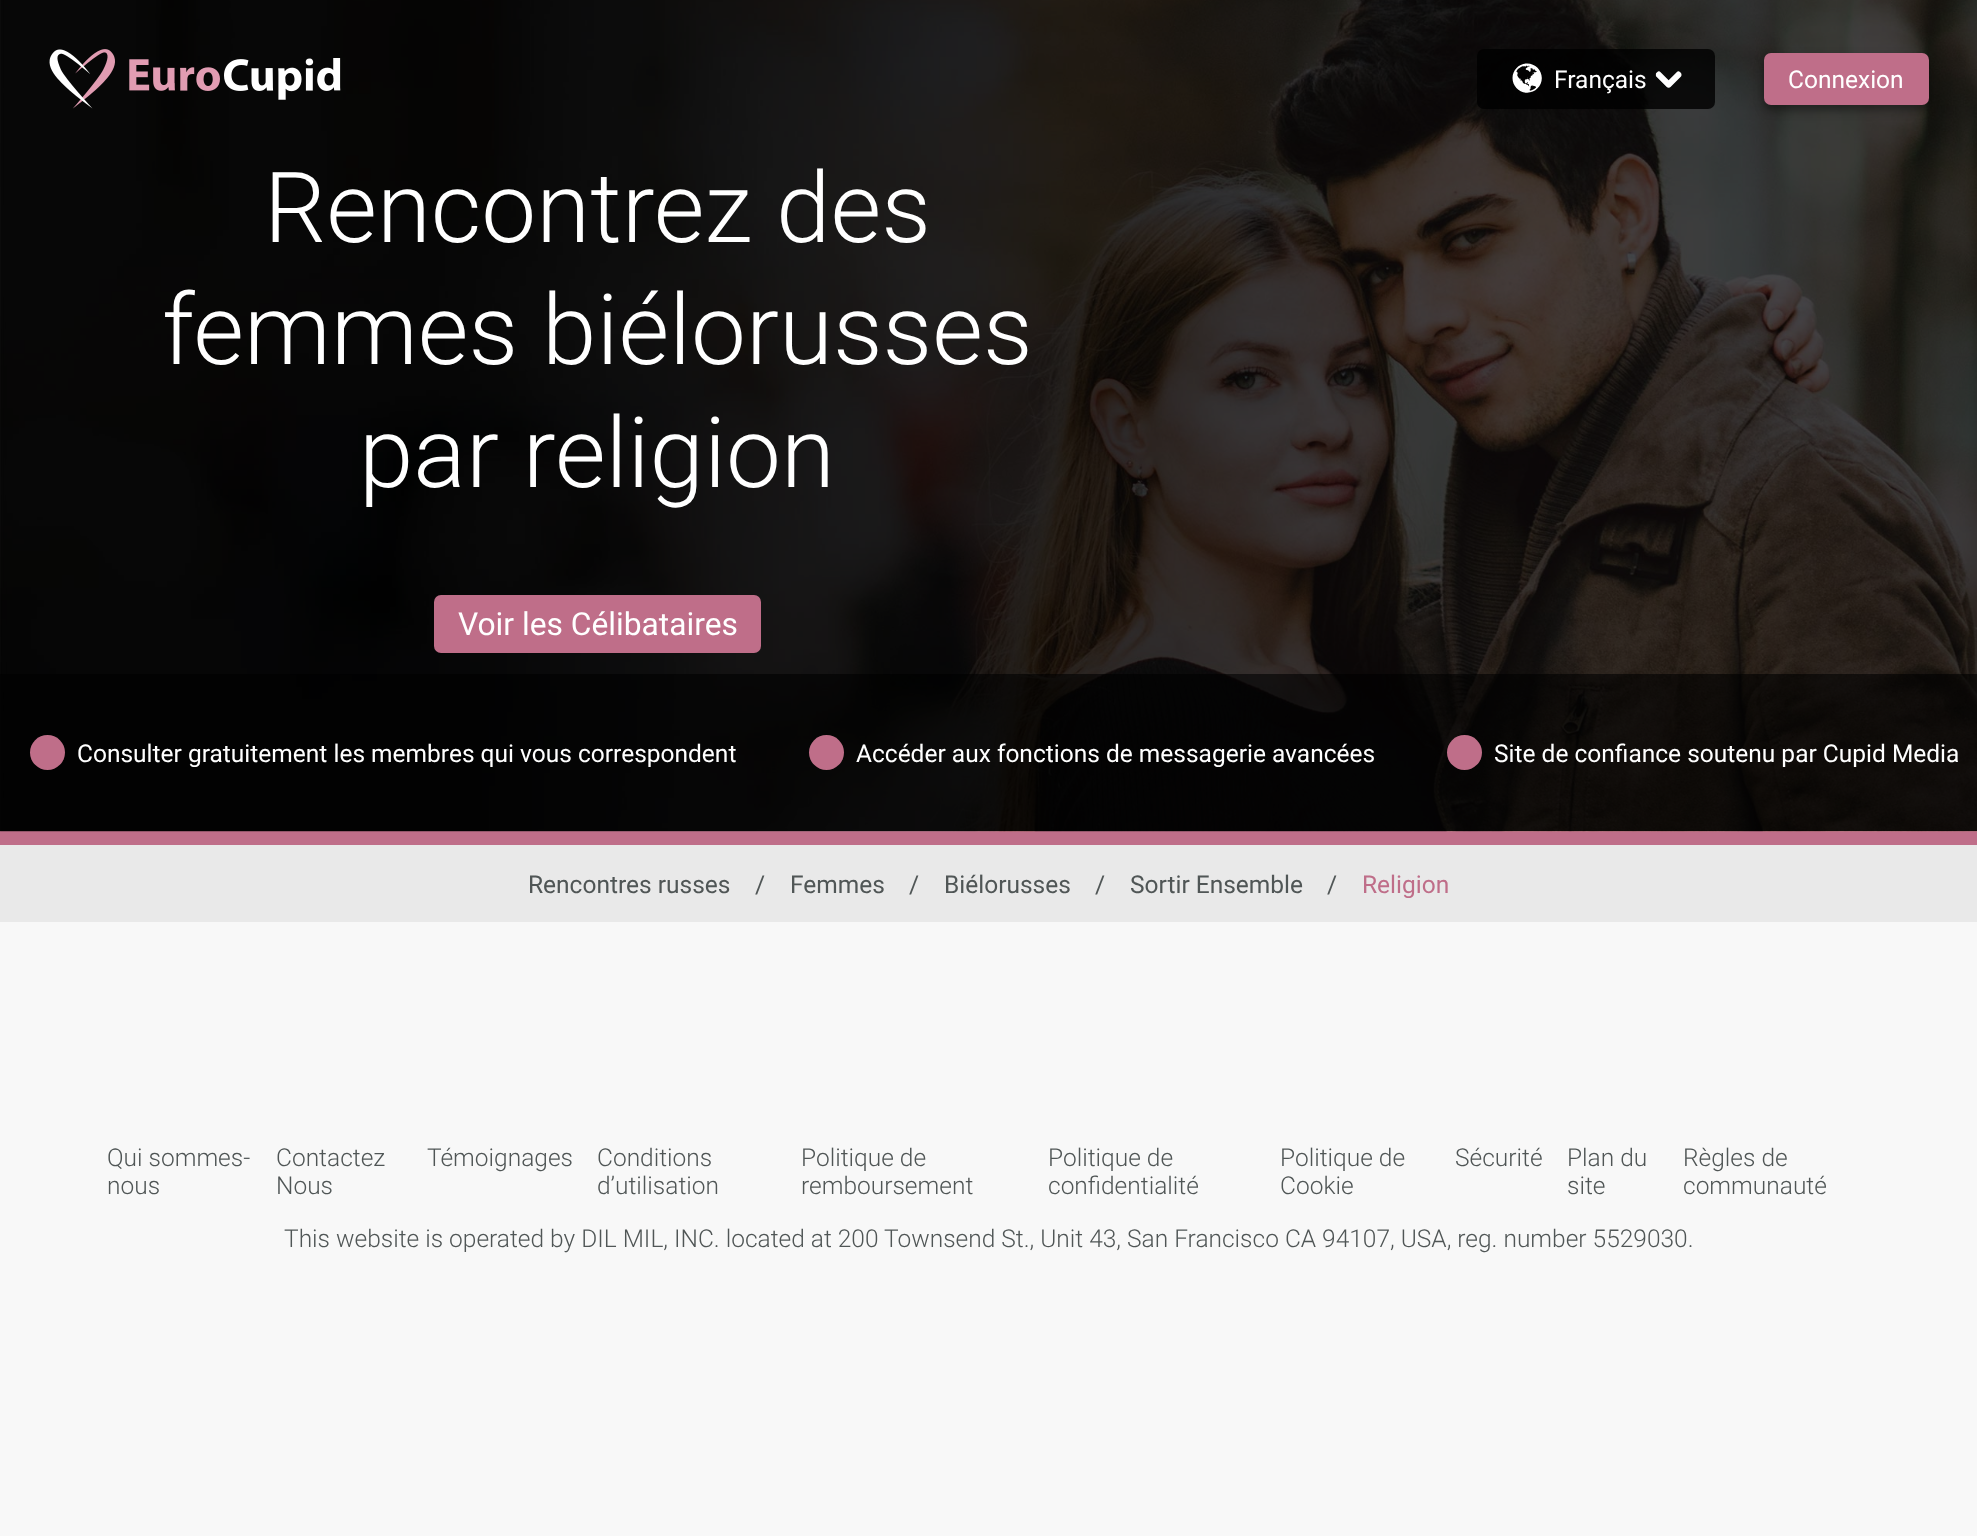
<svg xmlns="http://www.w3.org/2000/svg" xmlns:xlink="http://www.w3.org/1999/xlink" width="1977" height="1536" viewBox="0 0 1977 1536">
<style>
.cls-1{font:24.5px Roboto;fill:#ffffff}
.cls-2{font:300 98px Roboto;fill:#ffffff}
.cls-3{font:31.75px Roboto;fill:#ffffff}
.cls-4{font:24.5px Roboto;fill:#505656}
.cls-5{font:24.5px Roboto;fill:#bf6e89}
.cls-6{font:300 24.5px Roboto;fill:#505656}
</style>
<rect width="100%" height="100%" fill="#f8f8f8"/>
<rect fill="#bf6e89" x="0" y="831" width="1977" height="14"/>
<image xlink:href="image4.png" x="0" y="0" width="1977" height="832"/>
<image xlink:href="image0.png" x="49" y="49" width="66" height="60"/>
<image xlink:href="image1.png" x="129" y="58" width="212" height="42"/>
<rect fill="#000000" fill-opacity="0.8" x="1477" y="49" width="238" height="60" rx="7"/>
<image xlink:href="image2.png" x="1512" y="63" width="30" height="30"/>
<image xlink:href="image3.png" x="1655" y="71" width="27" height="17"/>
<rect fill="#000000" fill-opacity="0.4" filter="blur(5px)" x="1764" y="58" width="165" height="52" rx="7"/>
<rect fill="#bf6e89" x="1764" y="53" width="165" height="52" rx="7"/>
<rect fill="#bf6e89" x="434" y="595" width="327" height="58" rx="7"/>
<rect fill="#000000" fill-opacity="0.6" x="0" y="674" width="1977" height="157"/>
<circle fill="#bf6e89" cx="47.5" cy="752.5" r="17.5"/>
<circle fill="#bf6e89" cx="826.5" cy="752.5" r="17.5"/>
<circle fill="#bf6e89" cx="1464.5" cy="752.5" r="17.5"/>
<rect fill="#e9e9e9" x="0" y="845" width="1977" height="77"/>
<text class="cls-1" x="1554" y="88">Français</text>
<text class="cls-1" x="1788" y="88">Connexion</text>
<text class="cls-2" x="264" y="242">Rencontrez des</text>
<text class="cls-2" x="162" y="364">femmes biélorusses</text>
<text class="cls-2" x="359" y="487">par religion</text>
<text class="cls-3" x="458" y="635">Voir les Célibataires</text>
<text class="cls-1" x="77" y="762">Consulter gratuitement les membres qui vous correspondent</text>
<text class="cls-1" x="856" y="762">Accéder aux fonctions de messagerie avancées</text>
<text class="cls-1" x="1494" y="762">Site de confiance soutenu par Cupid Media</text>
<text class="cls-4" x="528" y="893">Rencontres russes</text>
<text class="cls-4" x="755" y="893">/</text>
<text class="cls-4" x="790" y="893">Femmes</text>
<text class="cls-4" x="909" y="893">/</text>
<text class="cls-4" x="944" y="893">Biélorusses</text>
<text class="cls-4" x="1095" y="893">/</text>
<text class="cls-4" x="1130" y="893">Sortir Ensemble</text>
<text class="cls-4" x="1327" y="893">/</text>
<text class="cls-5" x="1362" y="893">Religion</text>
<text class="cls-6"><tspan x="107" y="1166">Qui sommes-</tspan><tspan x="107" y="1194">nous</tspan></text>
<text class="cls-6"><tspan x="276" y="1166">Contactez</tspan><tspan x="276" y="1194">Nous</tspan></text>
<text class="cls-6" x="427" y="1166">Témoignages</text>
<text class="cls-6"><tspan x="597" y="1166">Conditions</tspan><tspan x="597" y="1194">d’utilisation</tspan></text>
<text class="cls-6"><tspan x="801" y="1166">Politique de</tspan><tspan x="801" y="1194">remboursement</tspan></text>
<text class="cls-6"><tspan x="1048" y="1166">Politique de</tspan><tspan x="1048" y="1194">confidentialité</tspan></text>
<text class="cls-6"><tspan x="1280" y="1166">Politique de</tspan><tspan x="1280" y="1194">Cookie</tspan></text>
<text class="cls-6" x="1455" y="1166">Sécurité</text>
<text class="cls-6"><tspan x="1567" y="1166">Plan du</tspan><tspan x="1567" y="1194">site</tspan></text>
<text class="cls-6"><tspan x="1683" y="1166">Règles de</tspan><tspan x="1683" y="1194">communauté</tspan></text>
<text class="cls-6" x="284" y="1247">This website is operated by DIL MIL, INC. located at 200 Townsend St., Unit 43, San Francisco CA 94107, USA, reg. number 5529030.</text>
</svg>
